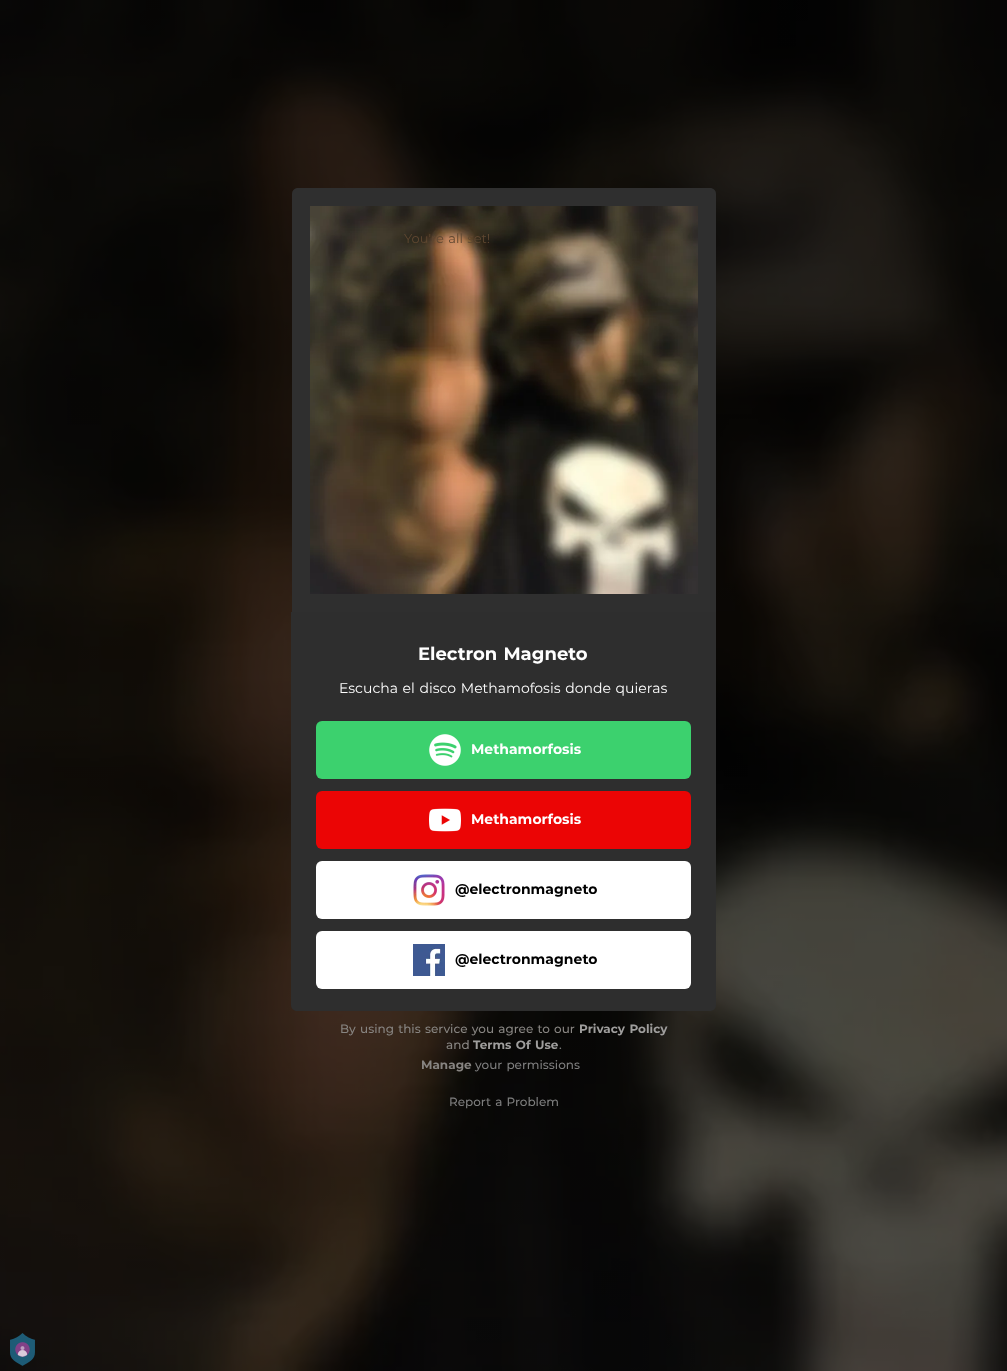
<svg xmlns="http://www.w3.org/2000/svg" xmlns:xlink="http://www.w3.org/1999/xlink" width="1007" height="1371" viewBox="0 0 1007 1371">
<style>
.cls-1{font:13px Montserrat;fill:#5f4731}
.cls-2{font:bold 18px Montserrat;fill:#ffffff}
.cls-3{font:14px Montserrat;fill:#ffffff}
.cls-4{font:bold 14px Montserrat;fill:#ffffff}
.cls-5{font:bold 14px Montserrat;fill:#000000}
.cls-6{font:500 12px Montserrat;fill:#878481}
.cls-7{font:bold 12px Montserrat;fill:#9f9e9d}
.cls-8{font:500 12px Montserrat;fill:#7d7d7d}
.cls-9{font:bold 12px Montserrat;fill:#878481}
</style>
<rect width="100%" height="100%" fill="#ffffff"/>
<image xlink:href="image0.png" x="0" y="0" width="1007" height="1371"/>
<path fill="#2f2f2f" d="M298 188H710C713.5 188 716 190.5 716 194V612H292V194C292 190.5 294.5 188 298 188Z"/>
<image xlink:href="image1.png" x="310" y="206" width="388" height="388"/>
<path fill="#2e2e2e" d="M291 612H716V1005C716 1008.5 713.5 1011 710 1011H297C293.5 1011 291 1008.5 291 1005Z"/>
<rect fill="#3cd16e" x="316" y="721" width="375" height="58" rx="6"/>
<image xlink:href="image2.png" x="429" y="734" width="32" height="32"/>
<rect fill="#eb0505" x="316" y="791" width="375" height="58" rx="6"/>
<image xlink:href="image3.png" x="429" y="808" width="32" height="24"/>
<rect fill="#ffffff" x="316" y="861" width="375" height="58" rx="6"/>
<image xlink:href="image4.png" x="413" y="874" width="32" height="32"/>
<rect fill="#ffffff" x="316" y="931" width="375" height="58" rx="6"/>
<image xlink:href="image5.png" x="413" y="944" width="32" height="32"/>
<image xlink:href="image6.png" x="10" y="1333" width="25" height="33"/>
<text class="cls-1" x="404" y="243" word-spacing="1">You're all set!</text>
<text class="cls-2" x="418" y="660" word-spacing="1">Electron Magneto</text>
<text class="cls-3" x="339" y="693" word-spacing="1">Escucha el disco Methamofosis donde quieras</text>
<text class="cls-4" x="471" y="754">Methamorfosis</text>
<text class="cls-4" x="471" y="824">Methamorfosis</text>
<text class="cls-5" x="455" y="894">@electronmagneto</text>
<text class="cls-5" x="455" y="964">@electronmagneto</text>
<text class="cls-6" x="340" y="1033" word-spacing="1">By using this service you agree to our</text>
<text class="cls-7" x="579" y="1033" word-spacing="1">Privacy Policy</text>
<text class="cls-6" x="446" y="1049">and</text>
<text class="cls-7" x="473" y="1049" word-spacing="1">Terms Of Use</text>
<text class="cls-8" x="559" y="1049">.</text>
<text class="cls-9" x="421" y="1069">Manage</text>
<text class="cls-8" x="475" y="1069" word-spacing="1">your permissions</text>
<text class="cls-8" x="449" y="1106" word-spacing="1">Report a Problem</text>
</svg>
